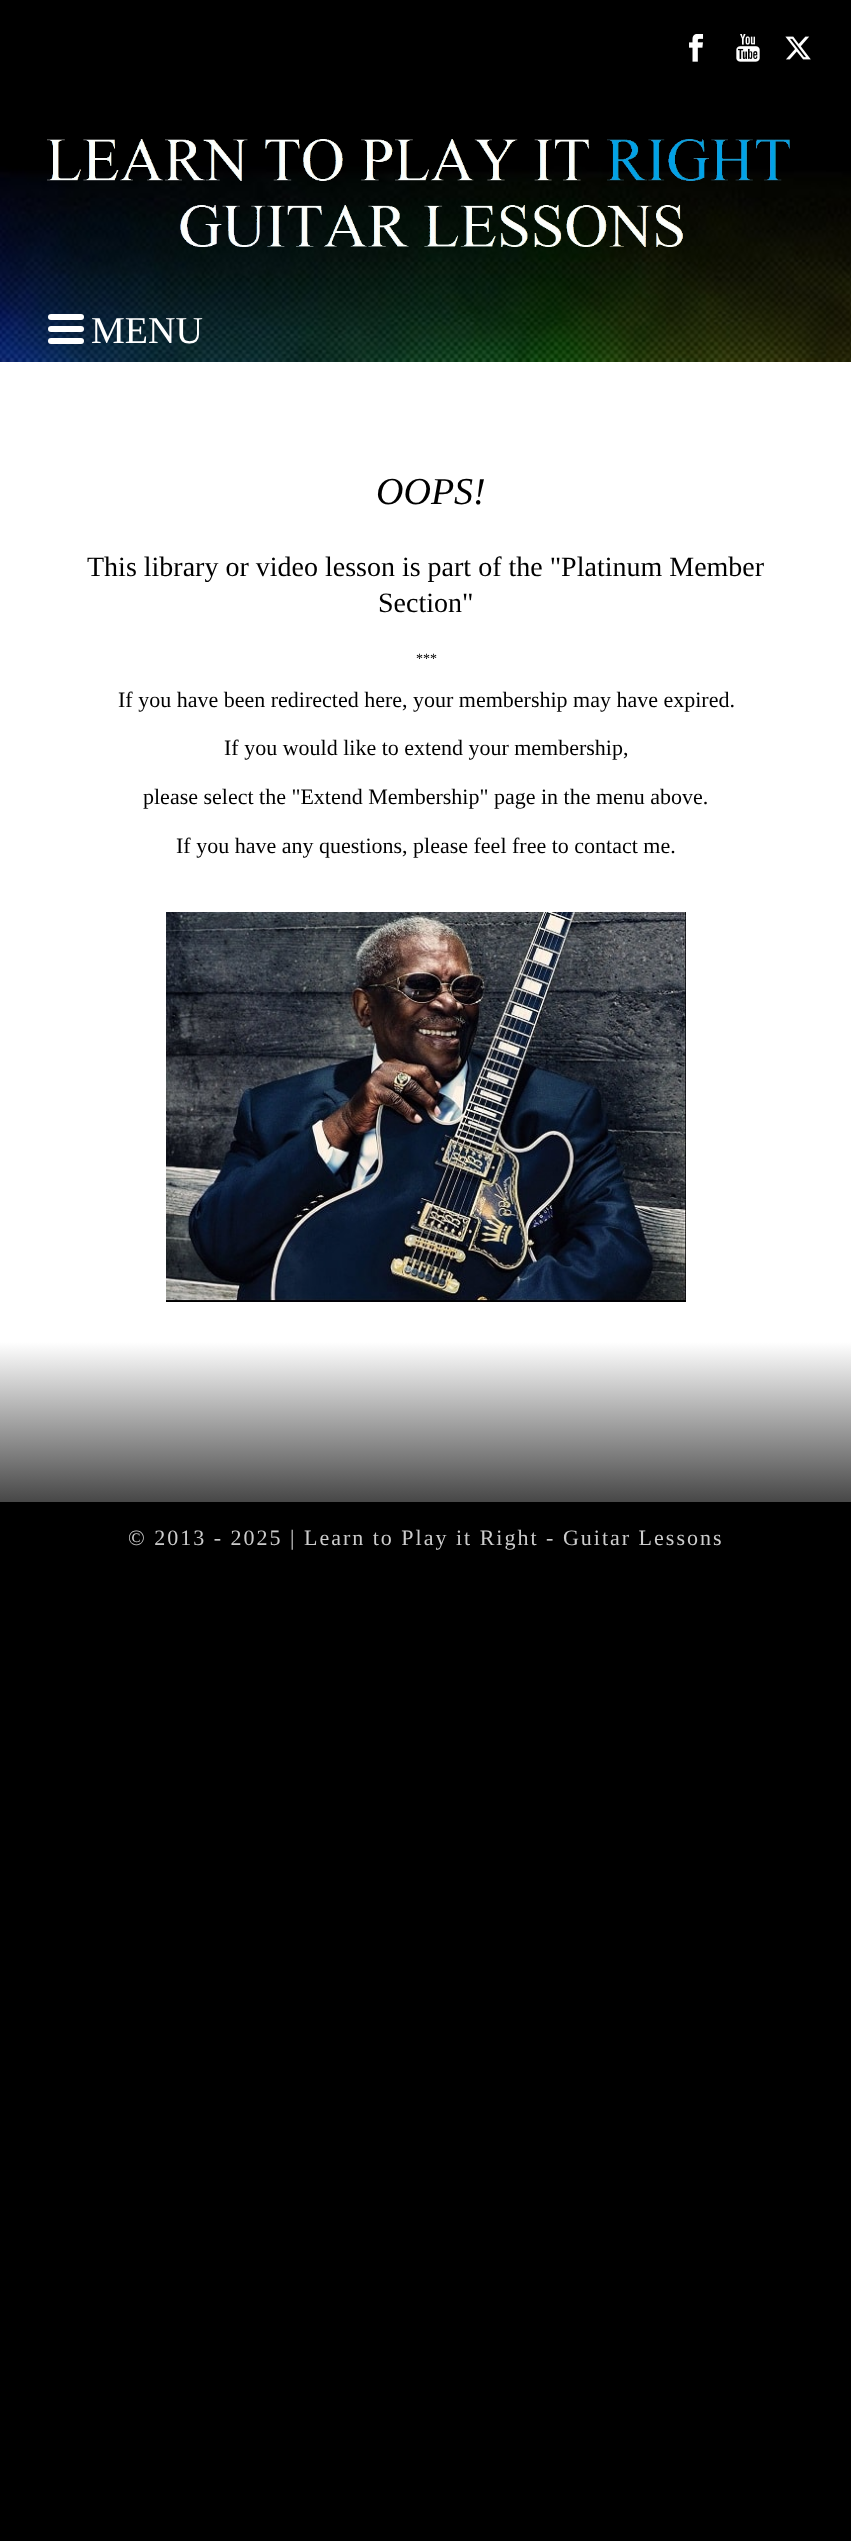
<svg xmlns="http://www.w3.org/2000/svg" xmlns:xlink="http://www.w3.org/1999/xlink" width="851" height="2541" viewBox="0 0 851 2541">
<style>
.cls-1{font:38px Liberation Serif;fill:#ffffff}
.cls-2{font:italic 38px Liberation Serif;fill:#000000}
.cls-3{font:28px Liberation Serif;fill:#000000}
.cls-4{font:14px Liberation Serif;fill:#000000}
.cls-5{font:22px Liberation Serif;fill:#000000}
.cls-6{font:22px Liberation Serif;letter-spacing:2px;fill:#cccccc}
</style>
<defs>
<linearGradient id="g1" gradientUnits="userSpaceOnUse" x1="426" y1="1342" x2="426" y2="1564"><stop offset="0" stop-color="#ffffff"/><stop offset="1" stop-color="#000000"/></linearGradient>
</defs>
<rect width="100%" height="100%" fill="#000000"/>
<image xlink:href="image0.png" x="689" y="34" width="15" height="28"/>
<image xlink:href="image1.png" x="736" y="34" width="24" height="28"/>
<image xlink:href="image2.png" x="785" y="36" width="26" height="24"/>
<image xlink:href="image3.png" x="0" y="102" width="851" height="260"/>
<image xlink:href="image4.png" x="47" y="139" width="743" height="108"/>
<rect fill="#ffffff" x="48" y="314" width="36" height="6" rx="3"/>
<rect fill="#ffffff" x="48" y="326" width="36" height="6" rx="3"/>
<rect fill="#ffffff" x="48" y="338" width="36" height="6" rx="3"/>
<rect fill="#ffffff" x="0" y="362" width="851" height="980"/>
<image xlink:href="image5.png" x="166" y="912" width="520" height="390"/>
<rect fill="url(#g1)" x="0" y="1342" width="851" height="160"/>
<text class="cls-1" x="91" y="343">MENU</text>
<text class="cls-2" x="376" y="504">OOPS!</text>
<text class="cls-3" x="87" y="576">This library or video lesson is part of the "Platinum Member</text>
<text class="cls-3" x="378" y="612">Section"</text>
<text class="cls-4" x="416" y="663">***</text>
<text class="cls-5" x="118" y="707">If you have been redirected here, your membership may have expired.</text>
<text class="cls-5" x="224" y="755">If you would like to extend your membership,</text>
<text class="cls-5" x="143" y="804">please select the "Extend Membership" page in the menu above.</text>
<text class="cls-5" x="176" y="853">If you have any questions, please feel free to contact me.</text>
<text class="cls-6" x="128" y="1545">© 2013 - 2025 | Learn to Play it Right - Guitar Lessons</text>
</svg>
